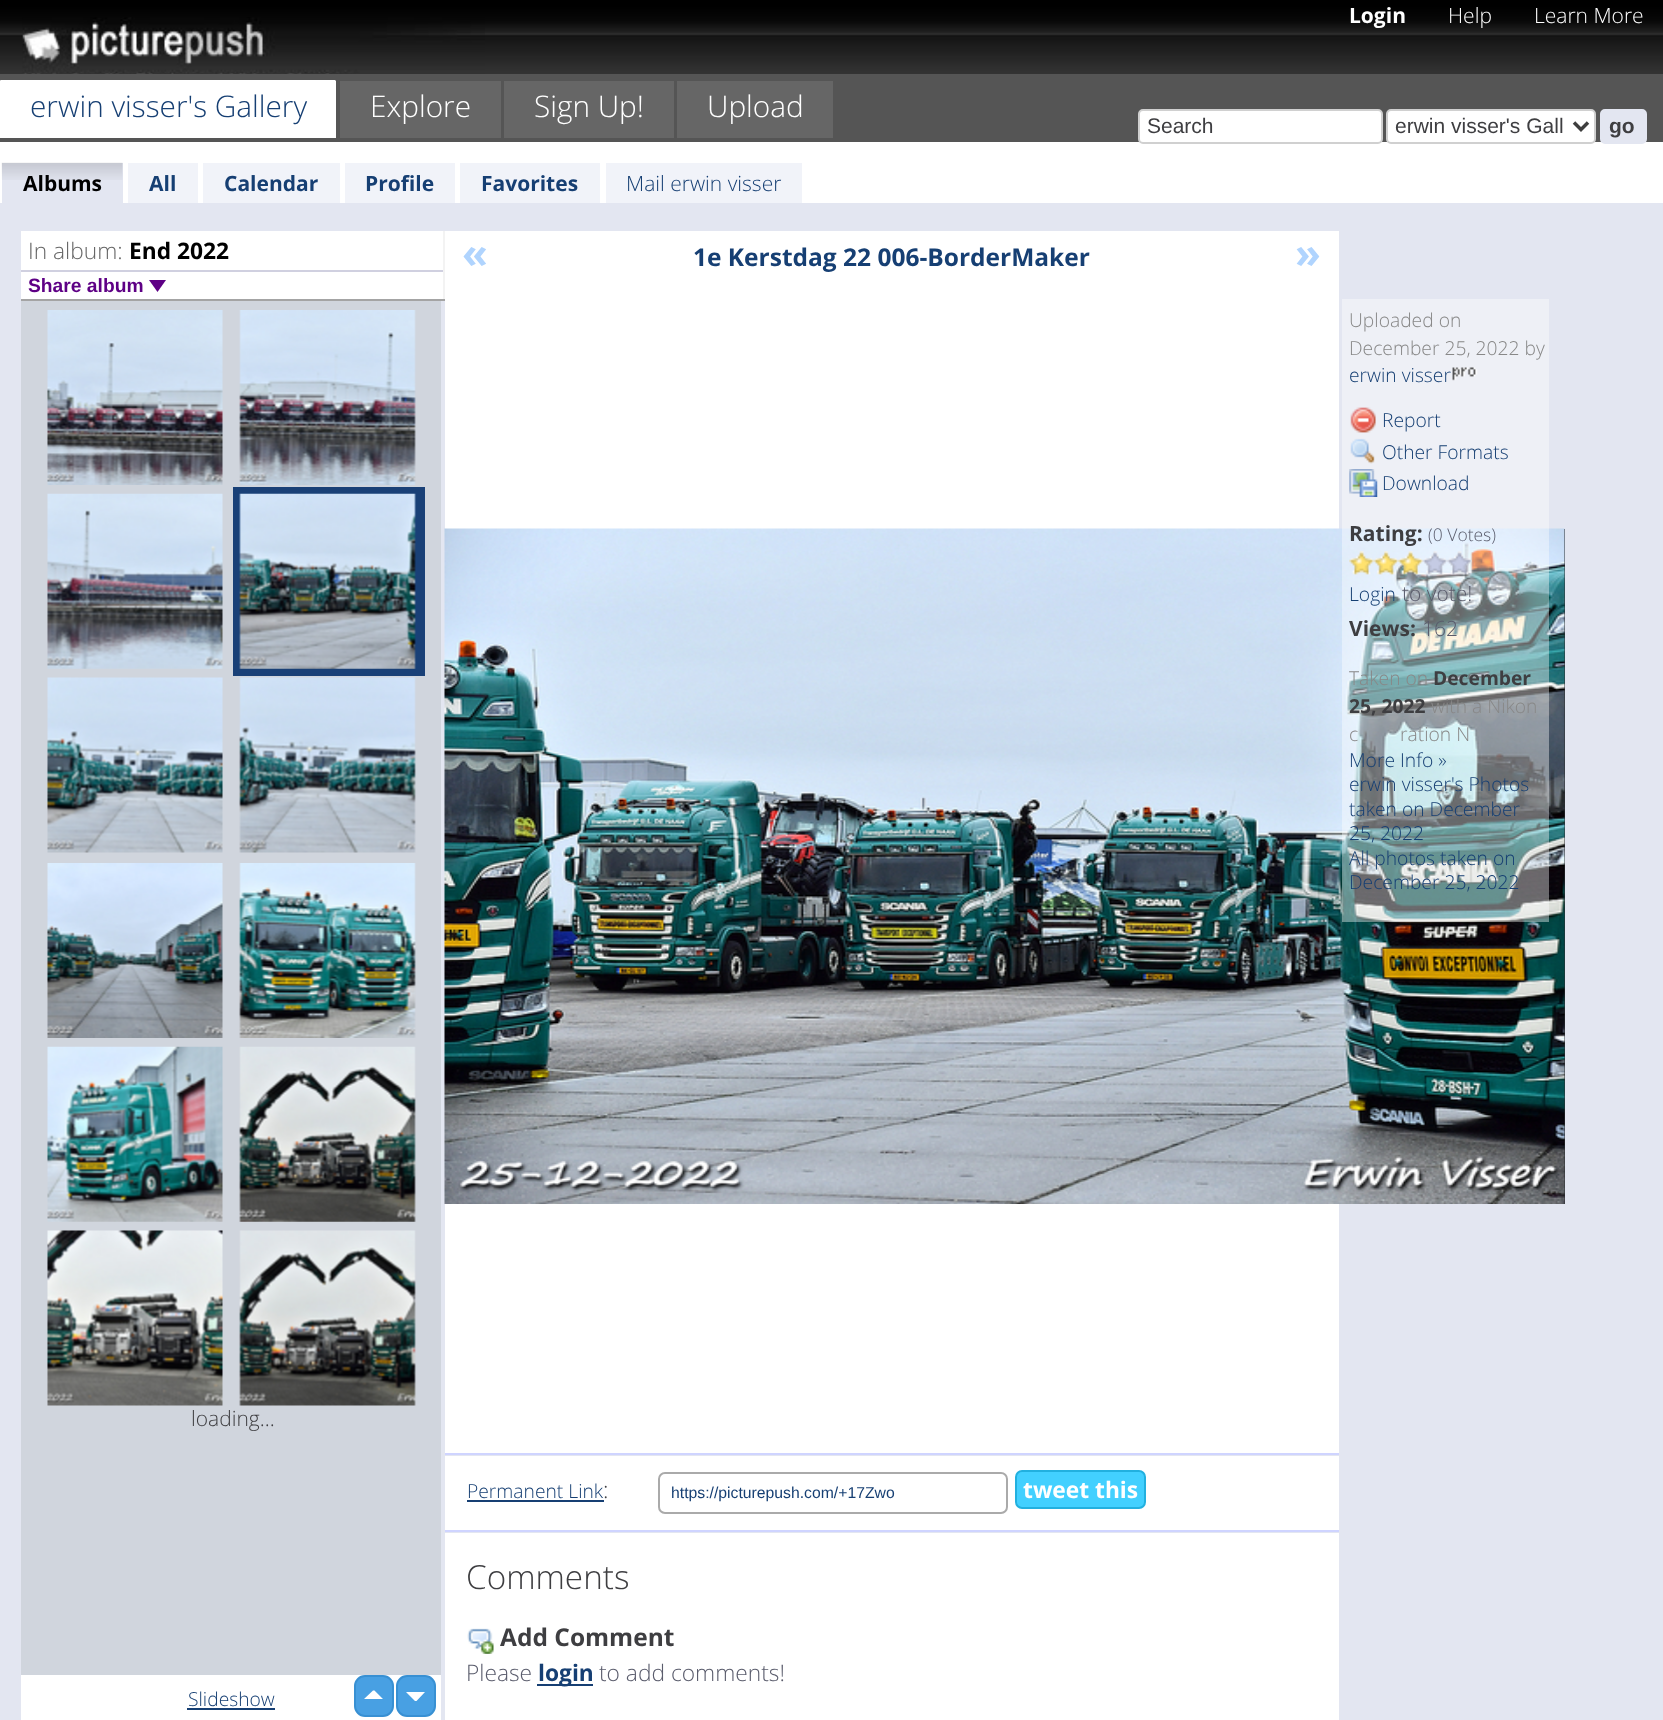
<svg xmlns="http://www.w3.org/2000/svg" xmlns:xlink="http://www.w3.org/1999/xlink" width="1663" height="1720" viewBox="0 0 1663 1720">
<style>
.cls-1{font:bold 21px Open Sans;fill:#ffffff}
.cls-2{font:300 21px Open Sans;fill:#ffffff}
.cls-3{font:300 29.75px Open Sans;fill:#163f73}
.cls-4{font:300 29.75px Open Sans;fill:#ffffff}
.cls-5{font:21px Liberation Sans;fill:#3e3e41}
.cls-6{font:bold 21px Liberation Sans;fill:#3e3e41}
.cls-7{font:bold 21px Open Sans;fill:#000000}
.cls-8{font:bold 21px Open Sans;fill:#163f73}
.cls-9{font:300 21px Open Sans;fill:#163f73}
.cls-10{font:300 22.75px Open Sans;fill:#666666}
.cls-11{font:bold 22.75px Open Sans;fill:#000000}
.cls-12{font:bold 19.25px Liberation Sans;fill:#5e0085}
.cls-13{font:300 21px Open Sans;fill:#3e3e41}
.cls-14{font:300 19.25px Open Sans;fill:#163f73}
.cls-15{font:bold 42px Open Sans;fill:#b0d4fe}
.cls-16{font:bold 24.5px Open Sans;fill:#163f73}
.cls-17{font:300 19.25px Open Sans;fill:#888888}
.cls-18{font:bold 21px Open Sans;fill:#3e3e41}
.cls-19{font:300 17.5px Open Sans;fill:#5a5c6c}
.cls-20{font:300 21px Open Sans;fill:#5a5c6c}
.cls-21{font:bold 19.25px Open Sans;fill:#3e3e41}
.cls-22{font:300 22.75px Open Sans;fill:#3e3e41}
.cls-23{font:15.75px Liberation Sans;fill:#163f73}
.cls-24{font:bold 22.75px Open Sans;fill:#ffffff}
.cls-25{font:300 33.25px Open Sans;fill:#3e3e41}
.cls-26{font:bold 24.5px Open Sans;fill:#3e3e41}
.cls-27{font:300 22.75px Open Sans;fill:#5a5c6c}
.cls-28{font:bold 22.75px Open Sans;fill:#163f73}
</style>
<rect width="100%" height="100%" fill="#e3e6f1"/>
<rect fill="#2d2e30" x="1564" y="529" width="1" height="675"/>
<image xlink:href="image0.png" x="0" y="0" width="1663" height="74"/>
<image xlink:href="image1.png" x="22" y="17" width="463" height="57"/>
<rect fill="#555555" x="0" y="74" width="1663" height="68"/>
<rect fill="#ffffff" x="0" y="81" width="336" height="57"/>
<path fill="#ffffff" d="M0 80H336L334 82H2Z"/>
<path fill="#ffffff" d="M0 138V80L2 82V136Z"/>
<rect fill="#666666" x="340" y="81" width="161" height="57"/>
<rect fill="#666666" x="504" y="81" width="170" height="57"/>
<rect fill="#666666" x="677" y="81" width="156" height="57"/>
<rect fill="#ffffff" x="0" y="142" width="1663" height="61"/>
<rect fill="#ffffff" stroke="#d0d0d0" stroke-width="2" x="1139" y="110" width="243" height="33" rx="4"/>
<rect fill="#ffffff" stroke="#d0d0d0" stroke-width="2" x="1387" y="110" width="208" height="33" rx="4"/>
<path fill="none" stroke="#3e3e3e" stroke-width="3.5" d="M1574 122.5L1581 129.5L1588 122.5"/>
<rect fill="#e3e6f1" stroke="#e3e6f1" stroke-width="2" x="1601" y="110" width="45" height="33" rx="4"/>
<rect fill="#e3e6f1" x="2" y="163" width="121" height="40"/>
<image xlink:href="image2.png" x="1" y="162" width="122" height="18"/>
<rect fill="#f1f3f9" x="128" y="163" width="70" height="40"/>
<rect fill="#f1f3f9" x="203" y="163" width="137" height="40"/>
<rect fill="#f1f3f9" x="345" y="163" width="110" height="40"/>
<rect fill="#f1f3f9" x="460" y="163" width="140" height="40"/>
<rect fill="#f1f3f9" x="606" y="163" width="196" height="40"/>
<rect fill="#ffffff" x="21" y="231" width="422" height="68"/>
<rect fill="#f3f3f3" x="443" y="231" width="2" height="70"/>
<rect fill="#a4a4a4" x="21" y="299" width="424" height="2"/>
<rect fill="#d0d0e0" x="21" y="270" width="422" height="2"/>
<path fill="#5e0085" d="M149 280H166L157.5 292Z"/>
<rect fill="#d0d5dd" x="21" y="301" width="420" height="1374"/>
<image xlink:href="image3.png" x="47" y="310" width="176" height="175"/>
<image xlink:href="image4.png" x="239" y="310" width="177" height="175"/>
<image xlink:href="image5.png" x="47" y="493" width="176" height="176"/>
<rect fill="#194077" x="233" y="487" width="192" height="189"/>
<image xlink:href="image6.png" x="239" y="493" width="177" height="176"/>
<image xlink:href="image7.png" x="47" y="677" width="176" height="176"/>
<image xlink:href="image8.png" x="239" y="677" width="177" height="176"/>
<image xlink:href="image9.png" x="47" y="863" width="176" height="175"/>
<image xlink:href="image10.png" x="239" y="863" width="177" height="175"/>
<image xlink:href="image11.png" x="47" y="1046" width="176" height="176"/>
<image xlink:href="image12.png" x="239" y="1046" width="177" height="176"/>
<image xlink:href="image13.png" x="47" y="1230" width="176" height="176"/>
<image xlink:href="image14.png" x="239" y="1230" width="177" height="176"/>
<rect fill="#ffffff" x="21" y="1675" width="420" height="45"/>
<rect fill="#48a0e3" stroke="#3890d3" stroke-width="2" x="355" y="1676" width="38" height="40" rx="10"/>
<rect fill="#48a0e3" stroke="#3890d3" stroke-width="2" x="397" y="1676" width="38" height="40" rx="10"/>
<path fill="#ffffff" d="M383 1699H364L373 1690.5H374.5ZM406 1692H425L416.5 1701H415Z"/>
<rect fill="#163f73" x="187" y="1708" width="88" height="2"/>
<rect fill="#ffffff" x="445" y="231" width="894" height="1222"/>
<rect fill="#cfd4ff" x="445" y="1453" width="894" height="2"/>
<image xlink:href="image24.png" x="444" y="528" width="1121" height="676"/>
<rect fill="#ffffff" fill-opacity="0.4" x="1342" y="299" width="207" height="623"/>
<image xlink:href="image15.png" x="1452" y="367" width="26" height="14"/>
<image xlink:href="image16.png" x="1350" y="407" width="26" height="26"/>
<image xlink:href="image17.png" x="1350" y="438" width="25" height="26"/>
<image xlink:href="image18.png" x="1349" y="469" width="29" height="28"/>
<image xlink:href="image19.png" x="1349" y="551" width="25" height="24"/>
<image xlink:href="image20.png" x="1373" y="551" width="26" height="24"/>
<image xlink:href="image21.png" x="1398" y="551" width="25" height="24"/>
<image xlink:href="image22.png" x="1422" y="551" width="26" height="24"/>
<image xlink:href="image23.png" x="1447" y="551" width="25" height="24"/>
<rect fill="#ffffff" x="445" y="1456" width="894" height="74"/>
<rect fill="#cfd4ff" x="445" y="1530" width="894" height="2"/>
<rect fill="#163f73" x="467" y="1500" width="137" height="2"/>
<rect fill="none" stroke="#aaaaaa" stroke-width="2" x="659" y="1473" width="348" height="40" rx="6"/>
<rect fill="#42d0ff" stroke="#22b0df" stroke-width="2" x="1016" y="1471" width="129" height="37" rx="6"/>
<rect fill="#ffffff" x="445" y="1533" width="894" height="187"/>
<image xlink:href="image25.png" x="467" y="1628" width="27" height="26"/>
<rect fill="#163f73" x="537" y="1684" width="56" height="2"/>
<text class="cls-1" x="1349" y="23">Login</text>
<text class="cls-2" x="1448" y="23">Help</text>
<text class="cls-2" x="1534" y="23">Learn More</text>
<text class="cls-3" x="30" y="117">erwin visser's Gallery</text>
<text class="cls-4" x="370" y="117">Explore</text>
<text class="cls-4" x="534" y="117">Sign Up!</text>
<text class="cls-4" x="707" y="117">Upload</text>
<text class="cls-5" x="1147" y="133">Search</text>
<text class="cls-5" x="1395" y="133">erwin visser's Gall</text>
<text class="cls-6" x="1609" y="133">go</text>
<text class="cls-7" x="23" y="191">Albums</text>
<text class="cls-8" x="149" y="191">All</text>
<text class="cls-8" x="224" y="191">Calendar</text>
<text class="cls-8" x="365" y="191">Profile</text>
<text class="cls-8" x="481" y="191">Favorites</text>
<text class="cls-9" x="626" y="191">Mail erwin visser</text>
<text class="cls-10" x="28" y="259">In album:</text>
<text class="cls-11" x="129" y="259">End 2022</text>
<text class="cls-12" x="28" y="292">Share album</text>
<text class="cls-13" x="191" y="1426">loading...</text>
<text class="cls-14" x="188" y="1706">Slideshow</text>
<text class="cls-15" x="462" y="268">«</text>
<text class="cls-16" x="693" y="266">1e Kerstdag 22 006-BorderMaker</text>
<text class="cls-15" x="1295" y="268">»</text>
<text class="cls-17"><tspan x="1349" y="327">Uploaded on</tspan><tspan x="1349" y="355">December 25, 2022 by</tspan></text>
<text class="cls-14" x="1349" y="382">erwin visser</text>
<text class="cls-14"><tspan x="1382" y="427">Report</tspan><tspan x="1382" y="459">Other Formats</tspan><tspan x="1382" y="490">Download</tspan></text>
<text class="cls-18" x="1349" y="541">Rating:</text>
<text class="cls-19" x="1428" y="541">(0 Votes)</text>
<text class="cls-14" x="1349" y="601">Login</text>
<text class="cls-20" x="1402" y="601">to vote!</text>
<text class="cls-18" x="1349" y="636">Views:</text>
<text class="cls-20" x="1422" y="636">162</text>
<text class="cls-17" x="1349" y="685">Taken on</text>
<text class="cls-21" x="1433" y="685">December</text>
<text class="cls-21" x="1349" y="713">25, 2022</text>
<text class="cls-17" x="1431" y="713">with a Nikon</text>
<text class="cls-17" x="1349" y="741">c</text>
<text class="cls-17" x="1400" y="741">ration N</text>
<text class="cls-14"><tspan x="1349" y="767">More Info »</tspan><tspan x="1349" y="791">erwin visser's Photos</tspan><tspan x="1349" y="816">taken on December</tspan><tspan x="1349" y="840">25, 2022</tspan><tspan x="1349" y="865">All photos taken on</tspan><tspan x="1349" y="889">December 25, 2022</tspan></text>
<text class="cls-14" x="467" y="1498">Permanent Link</text>
<text class="cls-22" x="603" y="1498">:</text>
<text class="cls-23" x="671" y="1498">https://picturepush.com/+17Zwo</text>
<text class="cls-24" x="1023" y="1498">tweet this</text>
<text class="cls-25" x="466" y="1589">Comments</text>
<text class="cls-26" x="500" y="1646">Add Comment</text>
<text class="cls-27" x="466" y="1681">Please</text>
<text class="cls-28" x="538" y="1681">login</text>
<text class="cls-27" x="599" y="1681">to add comments!</text>
</svg>
